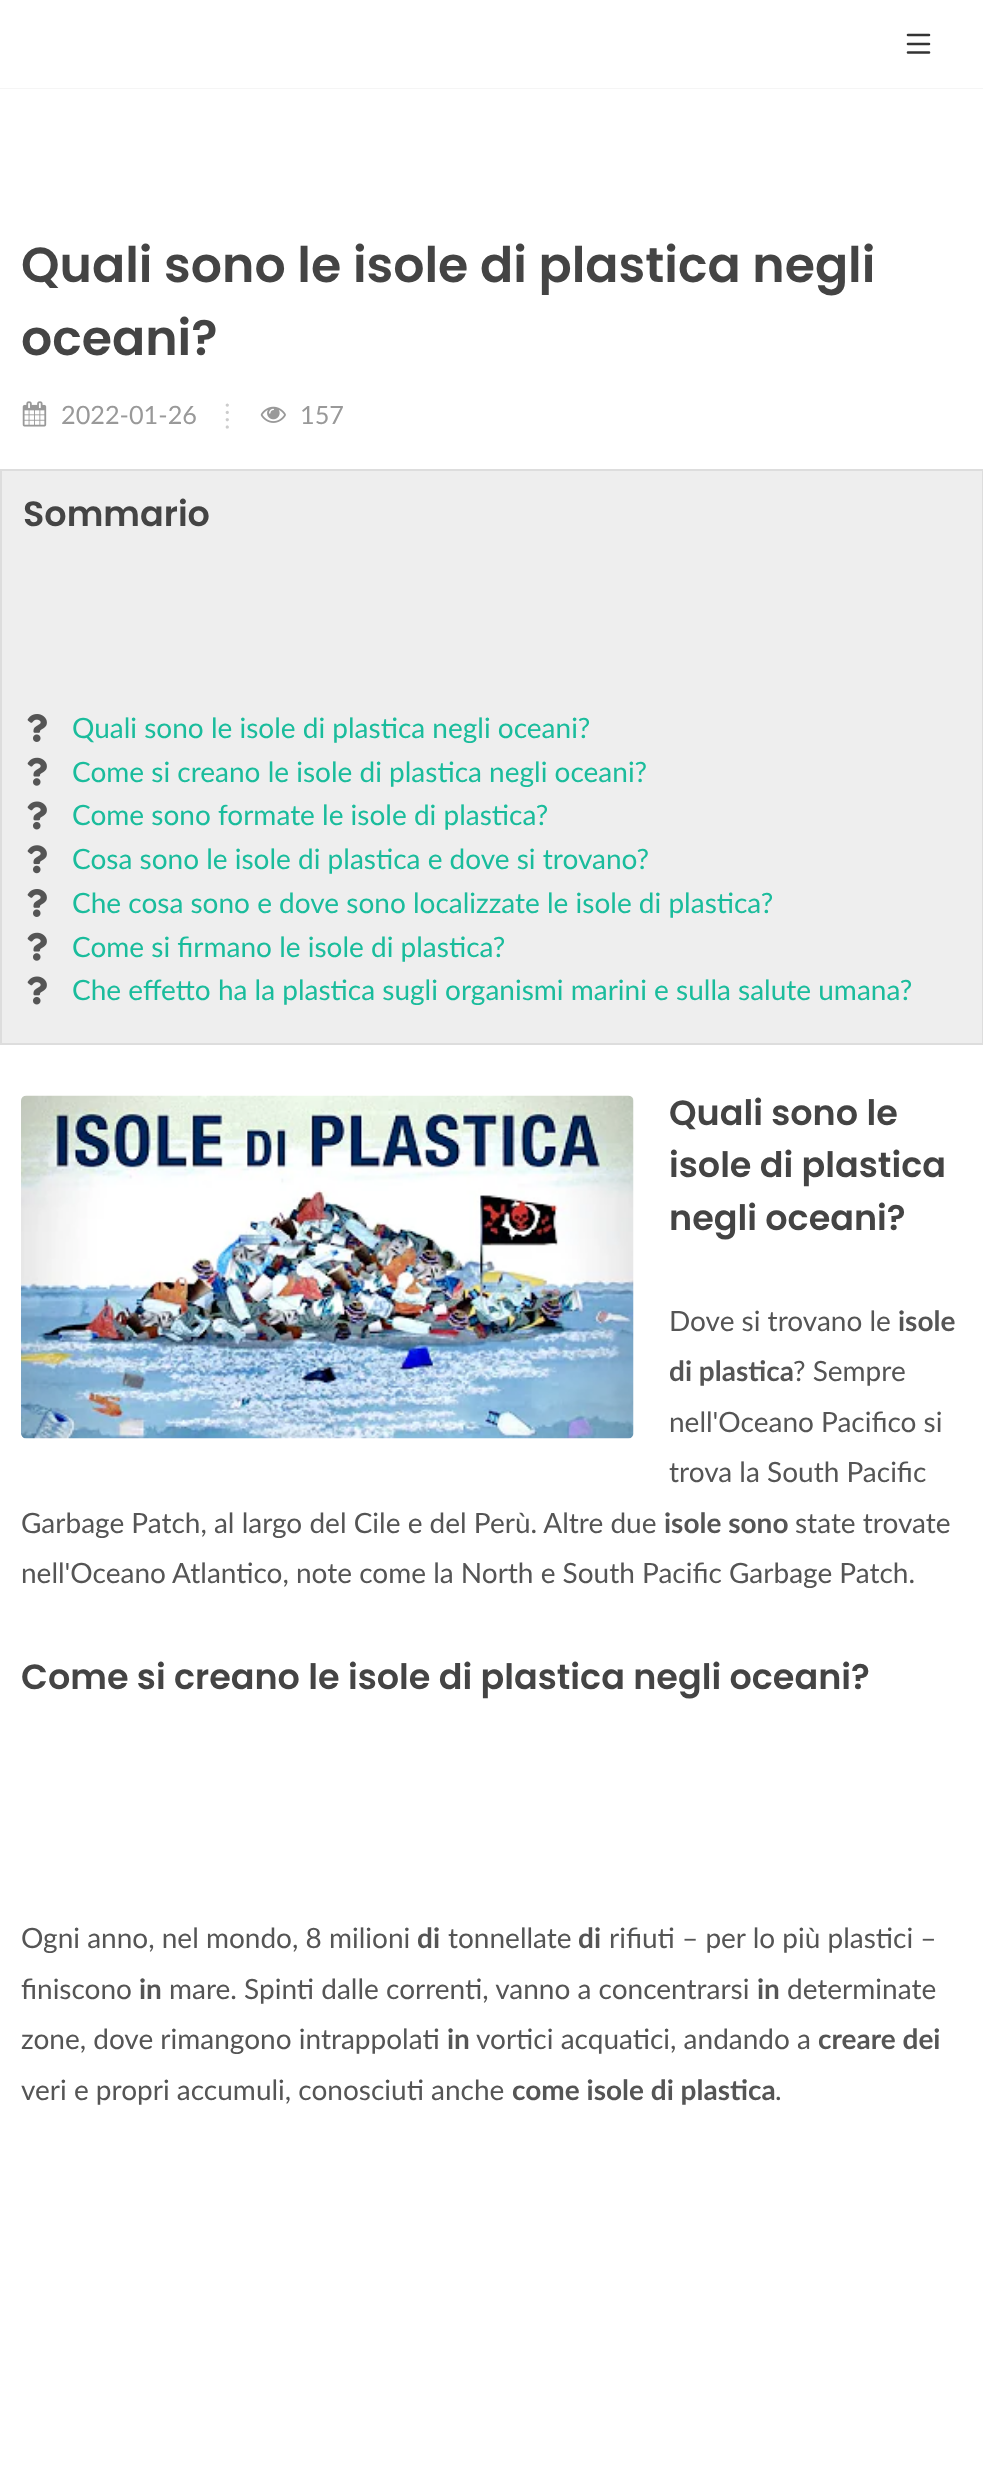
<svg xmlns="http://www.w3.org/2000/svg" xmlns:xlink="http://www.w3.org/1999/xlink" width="983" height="2490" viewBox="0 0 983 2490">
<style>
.cls-1{font:600 49px Poppins;fill:#444444}
.cls-2{font:25.25px Lato;fill:#999999}
.cls-3{font:25.25px Lato;fill:#cccccc}
.cls-4{font:600 35px Poppins;fill:#444444}
.cls-5{font:28px Lato;fill:#1abc9c}
.cls-6{font:28px Lato;fill:#555555}
.cls-7{font:bold 28px Lato;fill:#555555}
</style>
<rect width="100%" height="100%" fill="#f5f5f5"/>
<rect fill="#ffffff" x="0" y="0" width="983" height="88"/>
<path fill="none" stroke="#333333" stroke-width="2.6" stroke-linecap="round" d="M908 35H929M908 44H929M929 52.5H908"/>
<rect fill="#ffffff" x="0" y="89" width="983" height="2401"/>
<image xlink:href="image0.png" x="22" y="401" width="25" height="26"/>
<image xlink:href="image1.png" x="260" y="406" width="26" height="17"/>
<rect fill="#eeeeee" stroke="#dddddd" stroke-width="2" x="1" y="470" width="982" height="574"/>
<image xlink:href="image2.png" x="27" y="714" width="20" height="28"/>
<image xlink:href="image3.png" x="27" y="757" width="20" height="29"/>
<image xlink:href="image4.png" x="27" y="801" width="20" height="29"/>
<image xlink:href="image5.png" x="27" y="845" width="20" height="29"/>
<image xlink:href="image2.png" x="27" y="889" width="20" height="28"/>
<image xlink:href="image3.png" x="27" y="932" width="20" height="29"/>
<image xlink:href="image4.png" x="27" y="976" width="20" height="29"/>
<image xlink:href="image6.png" x="21" y="1095" width="613" height="344"/>
<text class="cls-1"><tspan x="21" y="282">Quali sono le isole di plastica negli</tspan><tspan x="21" y="355">oceani?</tspan></text>
<text class="cls-2" x="61" y="424">2022-01-26</text>
<text class="cls-3" x="224" y="424">⁞</text>
<text class="cls-2" x="300" y="424">157</text>
<text class="cls-4" x="23" y="526">Sommario</text>
<text class="cls-5"><tspan x="72" y="738">Quali sono le isole di plastica negli oceani?</tspan><tspan x="72" y="782">Come si creano le isole di plastica negli oceani?</tspan><tspan x="72" y="825">Come sono formate le isole di plastica?</tspan><tspan x="72" y="869">Cosa sono le isole di plastica e dove si trovano?</tspan><tspan x="72" y="913">Che cosa sono e dove sono localizzate le isole di plastica?</tspan><tspan x="72" y="957">Come si firmano le isole di plastica?</tspan><tspan x="72" y="1000">Che effetto ha la plastica sugli organismi marini e sulla salute umana?</tspan></text>
<text class="cls-4"><tspan x="669" y="1125">Quali sono le</tspan><tspan x="669" y="1177">isole di plastica</tspan><tspan x="669" y="1230">negli oceani?</tspan></text>
<text class="cls-6" x="669" y="1331">Dove si trovano le</text>
<text class="cls-7" x="898" y="1331">isole</text>
<text class="cls-7" x="669" y="1381">di plastica</text>
<text class="cls-6" x="793" y="1381">? Sempre</text>
<text class="cls-6"><tspan x="669" y="1432">nell'Oceano Pacifico si</tspan><tspan x="669" y="1482">trova la South Pacific</tspan></text>
<text class="cls-6" x="21" y="1533">Garbage Patch, al largo del Cile e del Perù. Altre due</text>
<text class="cls-7" x="664" y="1533">isole sono</text>
<text class="cls-6" x="795" y="1533">state trovate</text>
<text class="cls-6" x="21" y="1583">nell'Oceano Atlantico, note come la North e South Pacific Garbage Patch.</text>
<text class="cls-4" x="21" y="1689">Come si creano le isole di plastica negli oceani?</text>
<text class="cls-6" x="21" y="1948">Ogni anno, nel mondo, 8 milioni</text>
<text class="cls-7" x="417" y="1948">di</text>
<text class="cls-6" x="448" y="1948">tonnellate</text>
<text class="cls-7" x="578" y="1948">di</text>
<text class="cls-6" x="609" y="1948">rifiuti – per lo più plastici –</text>
<text class="cls-6" x="21" y="1999">finiscono</text>
<text class="cls-7" x="139" y="1999">in</text>
<text class="cls-6" x="169" y="1999">mare. Spinti dalle correnti, vanno a concentrarsi</text>
<text class="cls-7" x="757" y="1999">in</text>
<text class="cls-6" x="787" y="1999">determinate</text>
<text class="cls-6" x="21" y="2049">zone, dove rimangono intrappolati</text>
<text class="cls-7" x="447" y="2049">in</text>
<text class="cls-6" x="476" y="2049">vortici acquatici, andando a</text>
<text class="cls-7" x="818" y="2049">creare dei</text>
<text class="cls-6" x="21" y="2100">veri e propri accumuli, conosciuti anche</text>
<text class="cls-7" x="512" y="2100">come isole di plastica</text>
<text class="cls-6" x="775" y="2100">.</text>
</svg>
